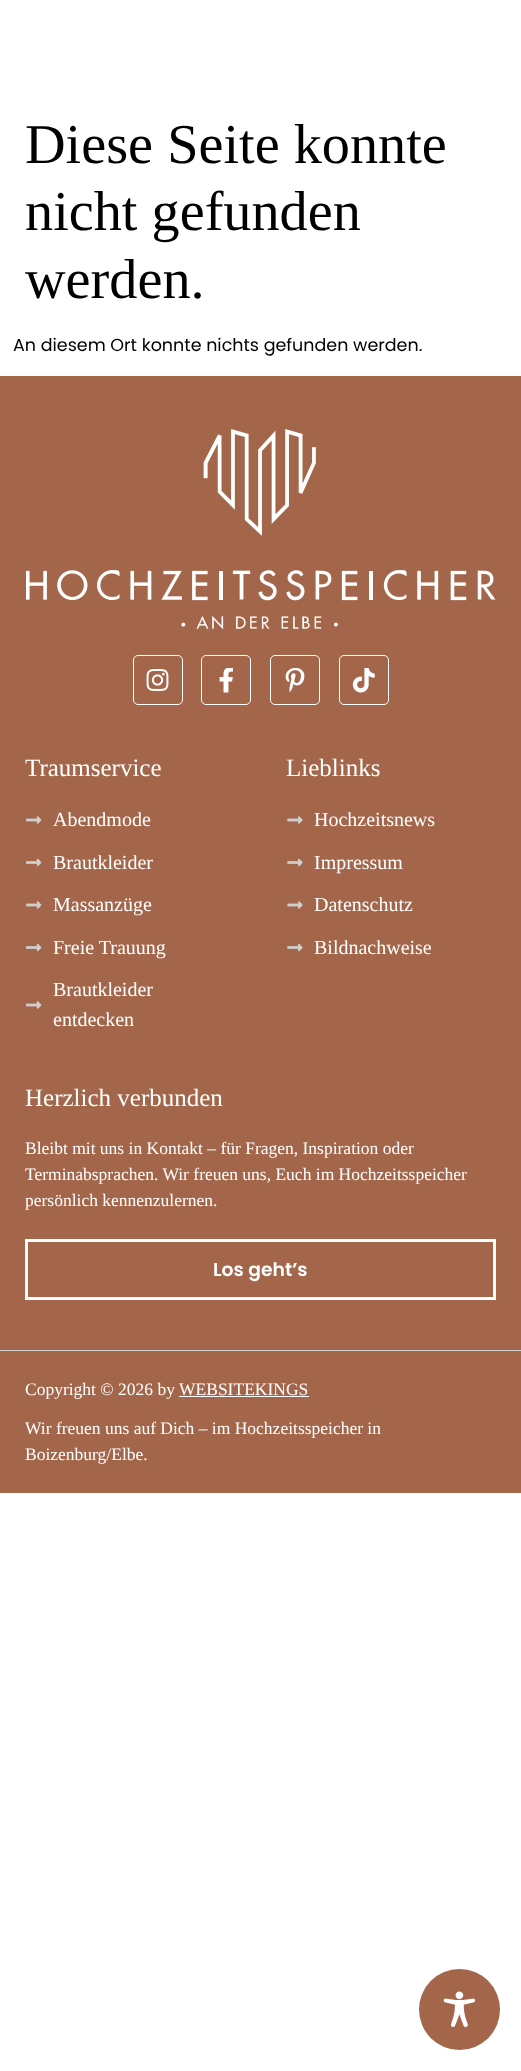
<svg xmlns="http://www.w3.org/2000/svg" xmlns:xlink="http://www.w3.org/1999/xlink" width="521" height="2071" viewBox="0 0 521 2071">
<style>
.cls-1{font:56.25px Liberation Serif;fill:#000000}
.cls-2{font:17.5px Poppins;fill:#000000}
.cls-3{font:25px Liberation Serif;fill:#ffffff}
.cls-4{font:20px Liberation Serif;fill:#ffffff}
.cls-5{font:17.5px Liberation Serif;fill:#ffffff}
.cls-6{font:600 18.75px Poppins;fill:#ffffff}
</style>
<rect width="100%" height="100%" fill="#ffffff"/>
<rect fill="#a3664b" x="0" y="376" width="521" height="974"/>
<image xlink:href="image0.png" x="26" y="429" width="470" height="201"/>
<rect fill="none" stroke="#ffffff" x="133.5" y="655.5" width="49" height="49" rx="4.5"/>
<image xlink:href="image1.png" x="146" y="669" width="23" height="22"/>
<rect fill="none" stroke="#ffffff" x="201.5" y="655.5" width="49" height="49" rx="4.5"/>
<image xlink:href="image2.png" x="219" y="668" width="14" height="25"/>
<rect fill="none" stroke="#ffffff" x="270.5" y="655.5" width="49" height="49" rx="4.5"/>
<image xlink:href="image3.png" x="285" y="668" width="20" height="25"/>
<rect fill="none" stroke="#ffffff" x="339.5" y="655.5" width="49" height="49" rx="4.5"/>
<image xlink:href="image4.png" x="352" y="668" width="23" height="25"/>
<image xlink:href="image5.png" x="26" y="816" width="16" height="8"/>
<image xlink:href="image6.png" x="26" y="858" width="16" height="9"/>
<image xlink:href="image5.png" x="26" y="901" width="16" height="8"/>
<image xlink:href="image6.png" x="26" y="943" width="16" height="9"/>
<image xlink:href="image5.png" x="26" y="1001" width="16" height="8"/>
<image xlink:href="image7.png" x="287" y="816" width="16" height="8"/>
<image xlink:href="image8.png" x="287" y="858" width="16" height="9"/>
<image xlink:href="image7.png" x="287" y="901" width="16" height="8"/>
<image xlink:href="image8.png" x="287" y="943" width="16" height="9"/>
<rect fill="none" stroke="#ffffff" stroke-width="3" x="26.5" y="1240.5" width="468" height="58"/>
<rect fill="#a3664b" x="0" y="1351" width="521" height="142"/>
<rect fill="#cfcfcf" x="0" y="1350" width="521" height="1"/>
<rect fill="#ffffff" x="179" y="1396" width="130" height="1"/>
<circle fill="#a3664b" cx="459.5" cy="2009.5" r="40.5"/>
<image xlink:href="image9.png" x="443" y="1991" width="32" height="37"/>
<text class="cls-1"><tspan x="25" y="163">Diese Seite konnte</tspan><tspan x="25" y="230">nicht gefunden</tspan><tspan x="25" y="298">werden.</tspan></text>
<text class="cls-2" x="13" y="351">An diesem Ort konnte nichts gefunden werden.</text>
<text class="cls-3" x="25" y="776">Traumservice</text>
<text class="cls-4" x="53" y="826">Abendmode</text>
<text class="cls-4" x="53" y="869">Brautkleider</text>
<text class="cls-4" x="53" y="911">Massanzüge</text>
<text class="cls-4" x="53" y="954">Freie Trauung</text>
<text class="cls-4"><tspan x="53" y="996">Brautkleider</tspan><tspan x="53" y="1026">entdecken</tspan></text>
<text class="cls-3" x="286" y="776">Lieblinks</text>
<text class="cls-4" x="314" y="826">Hochzeitsnews</text>
<text class="cls-4" x="314" y="869">Impressum</text>
<text class="cls-4" x="314" y="911">Datenschutz</text>
<text class="cls-4" x="314" y="954">Bildnachweise</text>
<text class="cls-3" x="25" y="1106">Herzlich verbunden</text>
<text class="cls-5"><tspan x="25" y="1154">Bleibt mit uns in Kontakt – für Fragen, Inspiration oder</tspan><tspan x="25" y="1180">Terminabsprachen. Wir freuen uns, Euch im Hochzeitsspeicher</tspan><tspan x="25" y="1206">persönlich kennenzulernen.</tspan></text>
<text class="cls-6" x="213" y="1276">Los geht’s</text>
<text class="cls-5" x="25" y="1395">Copyright © 2026 by</text>
<text class="cls-5" x="179" y="1395">WEBSITEKINGS</text>
<text class="cls-5"><tspan x="25" y="1434">Wir freuen uns auf Dich – im Hochzeitsspeicher in</tspan><tspan x="25" y="1460">Boizenburg/Elbe.</tspan></text>
</svg>
